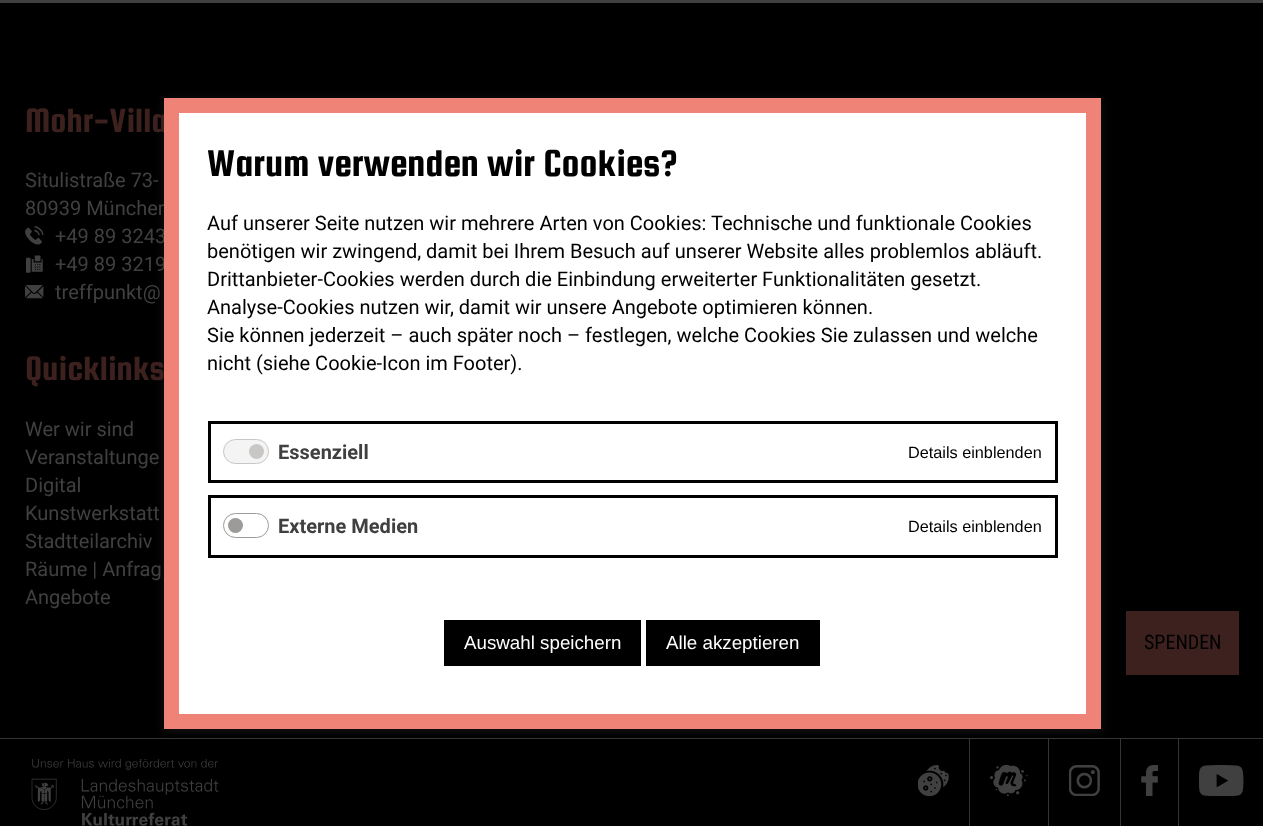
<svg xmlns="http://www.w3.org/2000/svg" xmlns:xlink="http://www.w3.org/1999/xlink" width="1263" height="826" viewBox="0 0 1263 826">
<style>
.cls-1{font:36px Squada One;fill:#3c211e}
.cls-2{font:20px Roboto;fill:#404040}
.cls-3{font:20px Roboto Condensed;fill:#000000}
.cls-4{font:40px Squada One;fill:#000000}
.cls-5{font:20px Roboto;fill:#000000}
.cls-6{font:bold 20px Roboto;fill:#404040}
.cls-7{font:16.25px Liberation Sans;fill:#000000}
.cls-8{font:18.75px Liberation Sans;fill:#ffffff}
</style>
<rect width="100%" height="100%" fill="#404040"/>
<rect fill="#000000" x="0" y="3" width="1263" height="823"/>
<image xlink:href="image0.png" x="25" y="226" width="19" height="19"/>
<image xlink:href="image1.png" x="26" y="255" width="17" height="18"/>
<image xlink:href="image2.png" x="25" y="285" width="19" height="14"/>
<rect fill="none" stroke="#3c211e" stroke-width="3" x="1127.5" y="612.5" width="110" height="61"/>
<rect fill="#3c211e" x="1129" y="614" width="107" height="58"/>
<rect fill="#373434" x="0" y="738" width="1263" height="1"/>
<image xlink:href="image3.png" x="31" y="759" width="188" height="67"/>
<image xlink:href="image4.png" x="918" y="765" width="31" height="31"/>
<rect fill="#373434" x="969" y="739" width="1" height="87"/>
<image xlink:href="image5.png" x="990" y="765" width="38" height="31"/>
<rect fill="#373434" x="1048" y="739" width="1" height="87"/>
<image xlink:href="image6.png" x="1069" y="765" width="31" height="31"/>
<rect fill="#373434" x="1120" y="739" width="1" height="87"/>
<image xlink:href="image7.png" x="1141" y="765" width="17" height="31"/>
<rect fill="#373434" x="1178" y="739" width="1" height="87"/>
<image xlink:href="image8.png" x="1199" y="765" width="45" height="31"/>
<rect fill="#636363" fill-opacity="0.2" filter="blur(5px)" x="164" y="100" width="937" height="631"/>
<text class="cls-1" x="25" y="132">Mohr-Villa</text>
<text class="cls-2"><tspan x="25" y="187">Situlistraße 73-</tspan><tspan x="25" y="215">80939 München</tspan></text>
<text class="cls-2"><tspan x="55" y="243">+49 89 3243</tspan><tspan x="55" y="271">+49 89 3219</tspan><tspan x="55" y="299">treffpunkt@</tspan></text>
<text class="cls-1" x="25" y="380">Quicklinks</text>
<text class="cls-2"><tspan x="25" y="436">Wer wir sind</tspan><tspan x="25" y="464">Veranstaltunge</tspan><tspan x="25" y="492">Digital</tspan><tspan x="25" y="520">Kunstwerkstatt</tspan><tspan x="25" y="548">Stadtteilarchiv</tspan><tspan x="25" y="576">Räume | Anfrag</tspan><tspan x="25" y="604">Angebote</tspan></text>
<text class="cls-3" x="1144" y="649">SPENDEN</text>
<rect fill="#ffffff" stroke="#ef8377" stroke-width="15" x="171.5" y="105.5" width="922" height="616"/>
<text class="cls-4" x="207" y="176">Warum verwenden wir Cookies?</text>
<text class="cls-5"><tspan x="207" y="230">Auf unserer Seite nutzen wir mehrere Arten von Cookies: Technische und funktionale Cookies</tspan><tspan x="207" y="258">benötigen wir zwingend, damit bei Ihrem Besuch auf unserer Website alles problemlos abläuft.</tspan><tspan x="207" y="286">Drittanbieter-Cookies werden durch die Einbindung erweiterter Funktionalitäten gesetzt.</tspan><tspan x="207" y="314">Analyse-Cookies nutzen wir, damit wir unsere Angebote optimieren können.</tspan><tspan x="207" y="342">Sie können jederzeit – auch später noch – festlegen, welche Cookies Sie zulassen und welche</tspan><tspan x="207" y="370">nicht (siehe Cookie-Icon im Footer).</tspan></text>
<rect fill="none" stroke="#000000" stroke-width="3" x="209.5" y="422.5" width="847" height="59"/>
<rect fill="#f4f4f4" stroke="#c8c7c5" x="223.5" y="439.5" width="45" height="24" rx="12"/>
<circle fill="#c8c7c5" cx="256.5" cy="451.5" r="7.5"/>
<text class="cls-6" x="278" y="459">Essenziell</text>
<text class="cls-7" x="908" y="458">Details einblenden</text>
<rect fill="none" stroke="#000000" stroke-width="3" x="209.5" y="496.5" width="847" height="60"/>
<rect fill="none" stroke="#9c9b99" x="223.5" y="513.5" width="45" height="24" rx="12"/>
<circle fill="#9c9b99" cx="235.5" cy="525.5" r="7.5"/>
<text class="cls-6" x="278" y="533">Externe Medien</text>
<text class="cls-7" x="908" y="532">Details einblenden</text>
<rect fill="#000000" x="444" y="620" width="197" height="46"/>
<text class="cls-8" x="464" y="649">Auswahl speichern</text>
<rect fill="#000000" x="646" y="620" width="174" height="46"/>
<text class="cls-8" x="666" y="649">Alle akzeptieren</text>
</svg>
